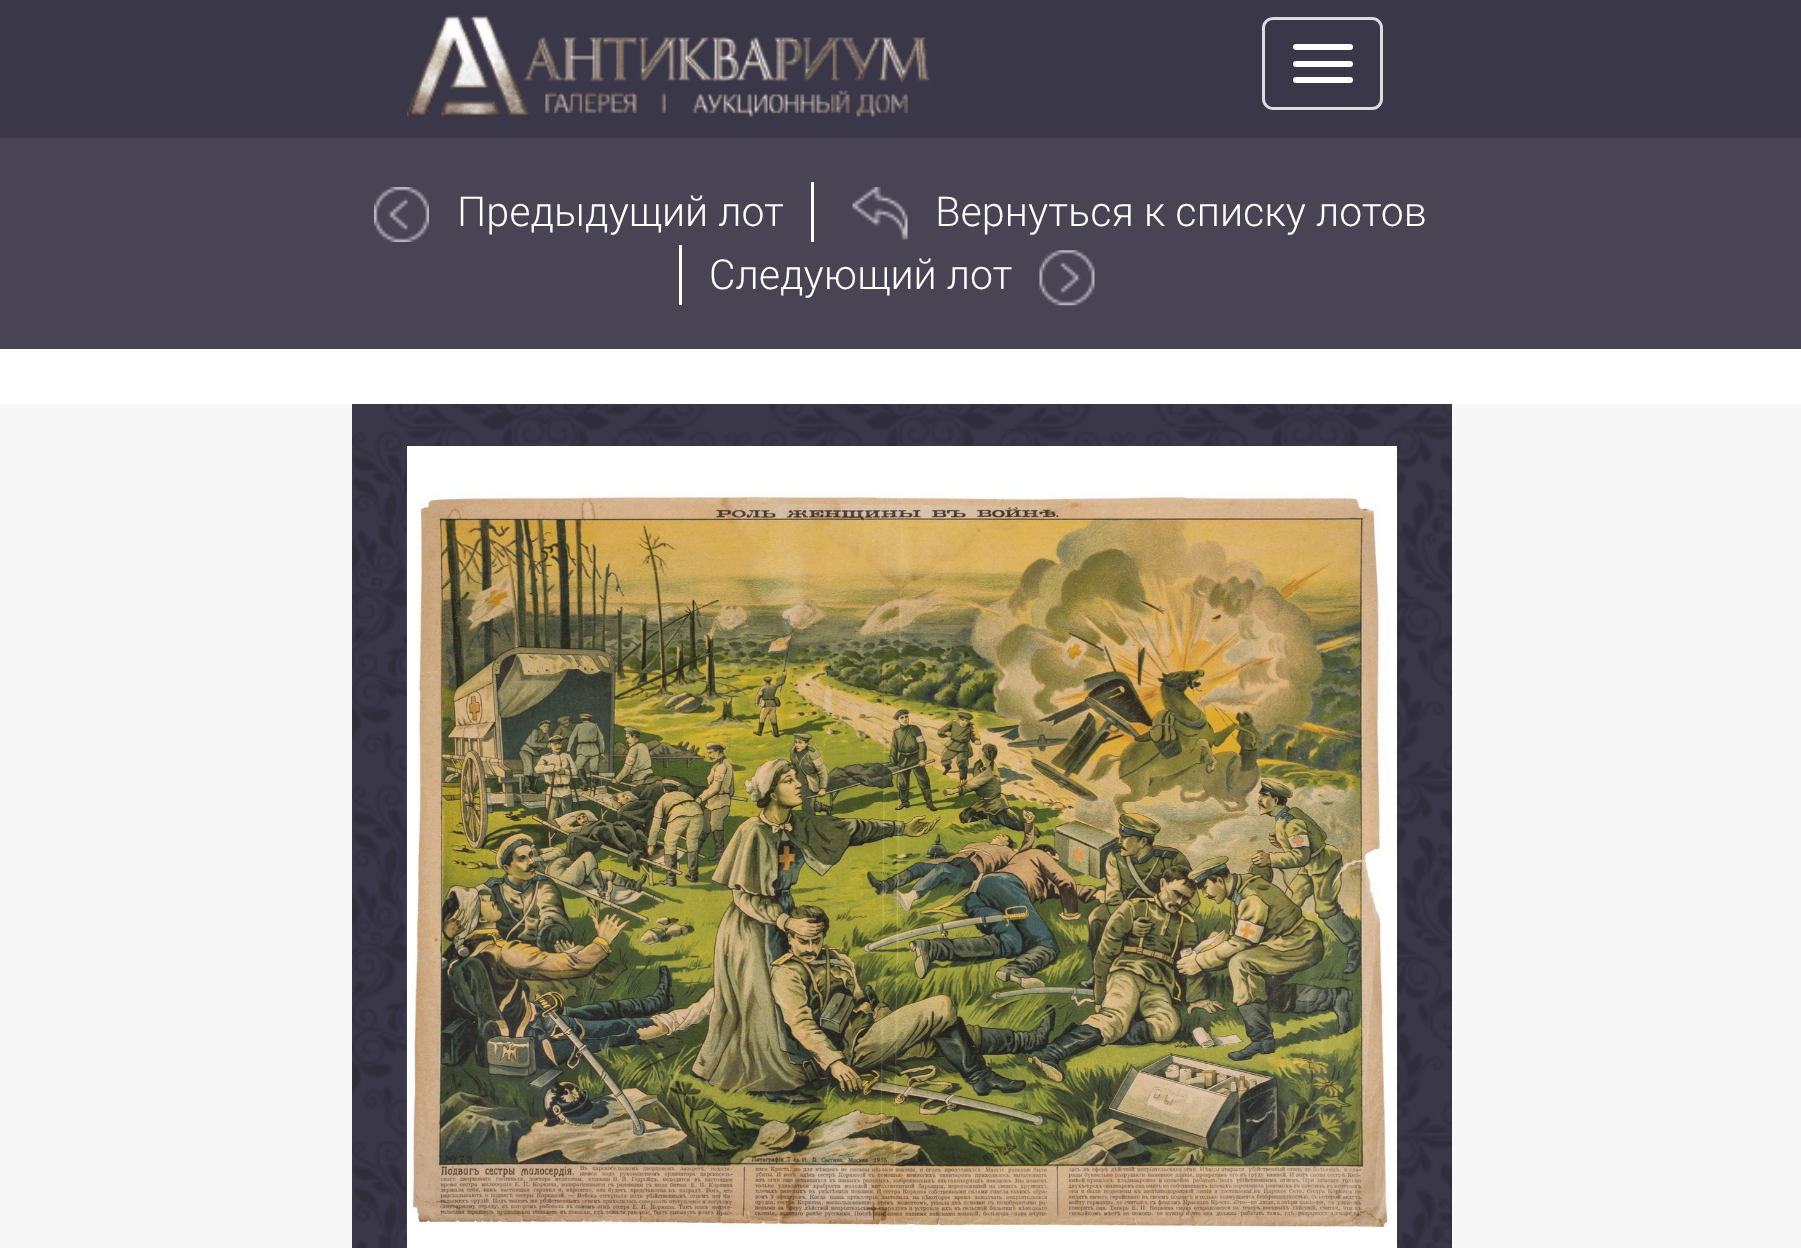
<svg xmlns="http://www.w3.org/2000/svg" xmlns:xlink="http://www.w3.org/1999/xlink" width="1801" height="1248" viewBox="0 0 1801 1248">
<style>
.cls-1{font:300 41.25px Roboto;fill:#ffffff}
</style>
<rect width="100%" height="100%" fill="#ffffff"/>
<rect fill="#3a3749" x="0" y="0" width="1801" height="138"/>
<image xlink:href="image0.png" x="407" y="15" width="523" height="102"/>
<rect fill="none" stroke="#dddddd" stroke-width="3" x="1263.5" y="18.5" width="118" height="90" rx="9.5"/>
<rect fill="#ffffff" x="1293" y="44" width="60" height="6" rx="3"/>
<rect fill="#ffffff" x="1293" y="61" width="60" height="6" rx="3"/>
<rect fill="#ffffff" x="1293" y="77" width="60" height="6" rx="3"/>
<rect fill="#484454" x="0" y="138" width="1801" height="211"/>
<rect fill="#ffffff" x="811" y="182" width="3" height="60"/>
<image xlink:href="image1.png" x="374" y="187" width="55" height="55"/>
<image xlink:href="image2.png" x="852" y="187" width="56" height="54"/>
<rect fill="#ffffff" x="679" y="245" width="3" height="60"/>
<image xlink:href="image3.png" x="1039" y="250" width="56" height="56"/>
<rect fill="#f8f7f8" x="0" y="404" width="1801" height="844"/>
<rect fill="#3a3749" x="352" y="404" width="1100" height="844"/>
<image xlink:href="image4.png" x="352" y="404" width="1100" height="844"/>
<rect fill="#ffffff" x="407" y="446" width="990" height="802"/>
<image xlink:href="image5.png" x="406" y="492" width="985" height="740"/>
<text class="cls-1" x="457" y="226">Предыдущий лот</text>
<text class="cls-1" x="935" y="226">Вернуться к списку лотов</text>
<text class="cls-1" x="709" y="289">Следующий лот</text>
</svg>
